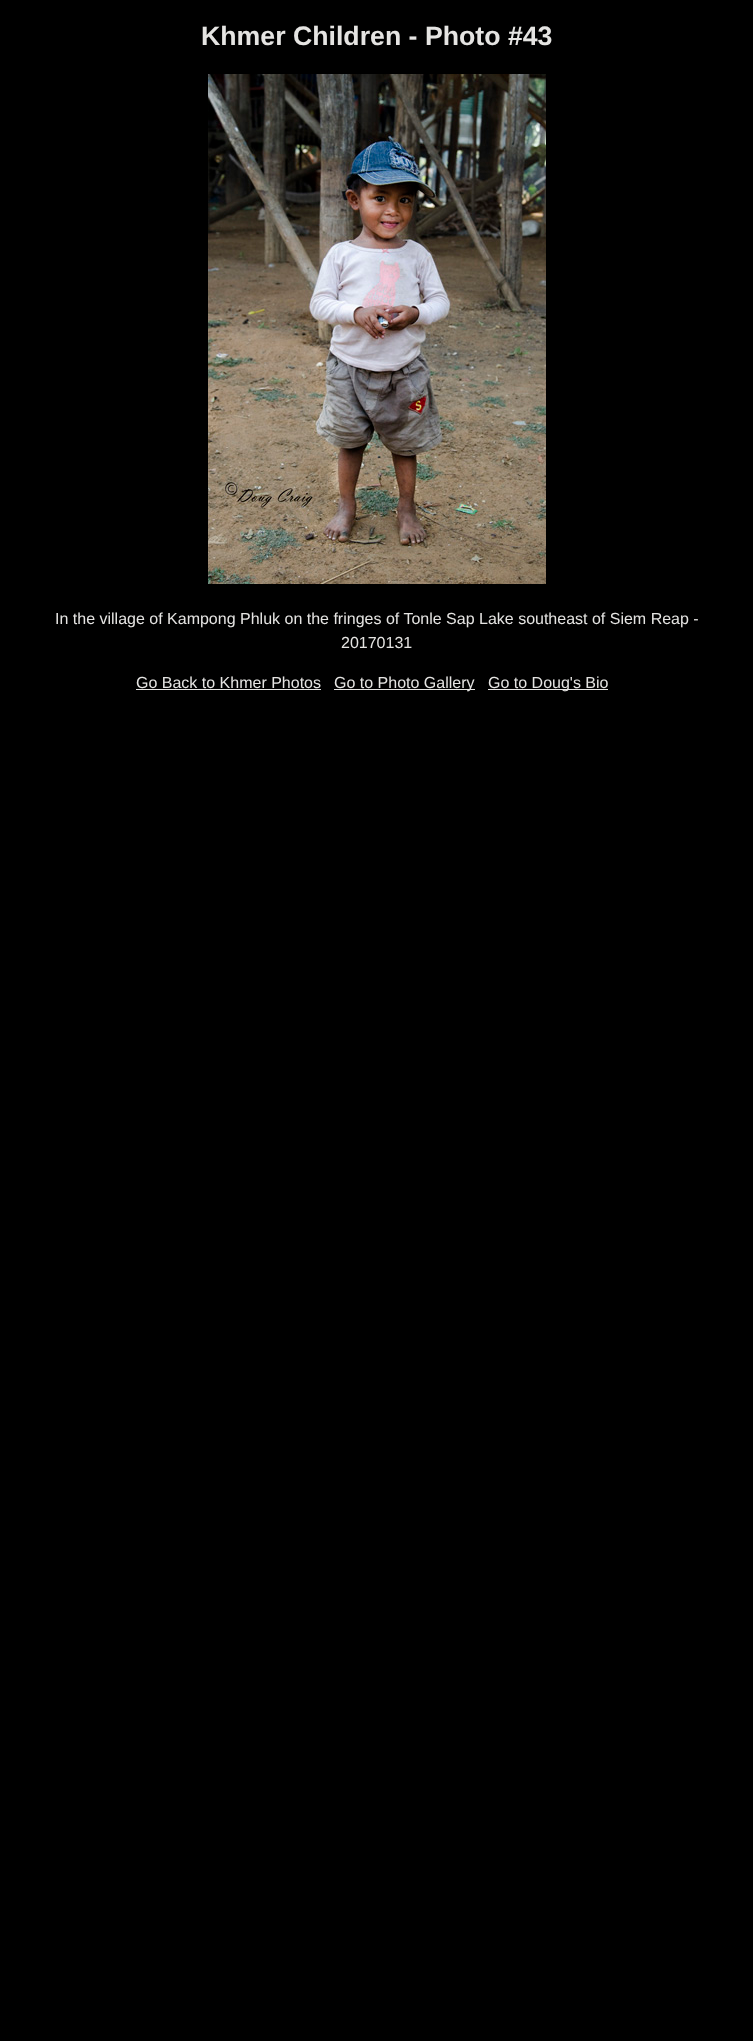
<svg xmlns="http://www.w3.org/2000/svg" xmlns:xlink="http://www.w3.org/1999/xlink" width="753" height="2041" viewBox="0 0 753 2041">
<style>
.cls-1{font:bold 26.7px Liberation Sans;fill:#e5e4e2}
.cls-2{font:16px Liberation Sans;fill:#e5e4e2}
</style>
<rect width="100%" height="100%" fill="#000000"/>
<image xlink:href="image0.png" x="208" y="74" width="338" height="510"/>
<rect fill="#e5e4e2" x="136" y="689" width="185" height="1"/>
<rect fill="#e5e4e2" x="334" y="689" width="141" height="1"/>
<rect fill="#e5e4e2" x="488" y="689" width="120" height="1"/>
<text class="cls-1" x="201" y="45">Khmer Children - Photo #43</text>
<text class="cls-2" x="55" y="624">In the village of Kampong Phluk on the fringes of Tonle Sap Lake southeast of Siem Reap -</text>
<text class="cls-2" x="341" y="648">20170131</text>
<text class="cls-2" x="136" y="688">Go Back to Khmer Photos</text>
<text class="cls-2" x="334" y="688">Go to Photo Gallery</text>
<text class="cls-2" x="488" y="688">Go to Doug's Bio</text>
</svg>
